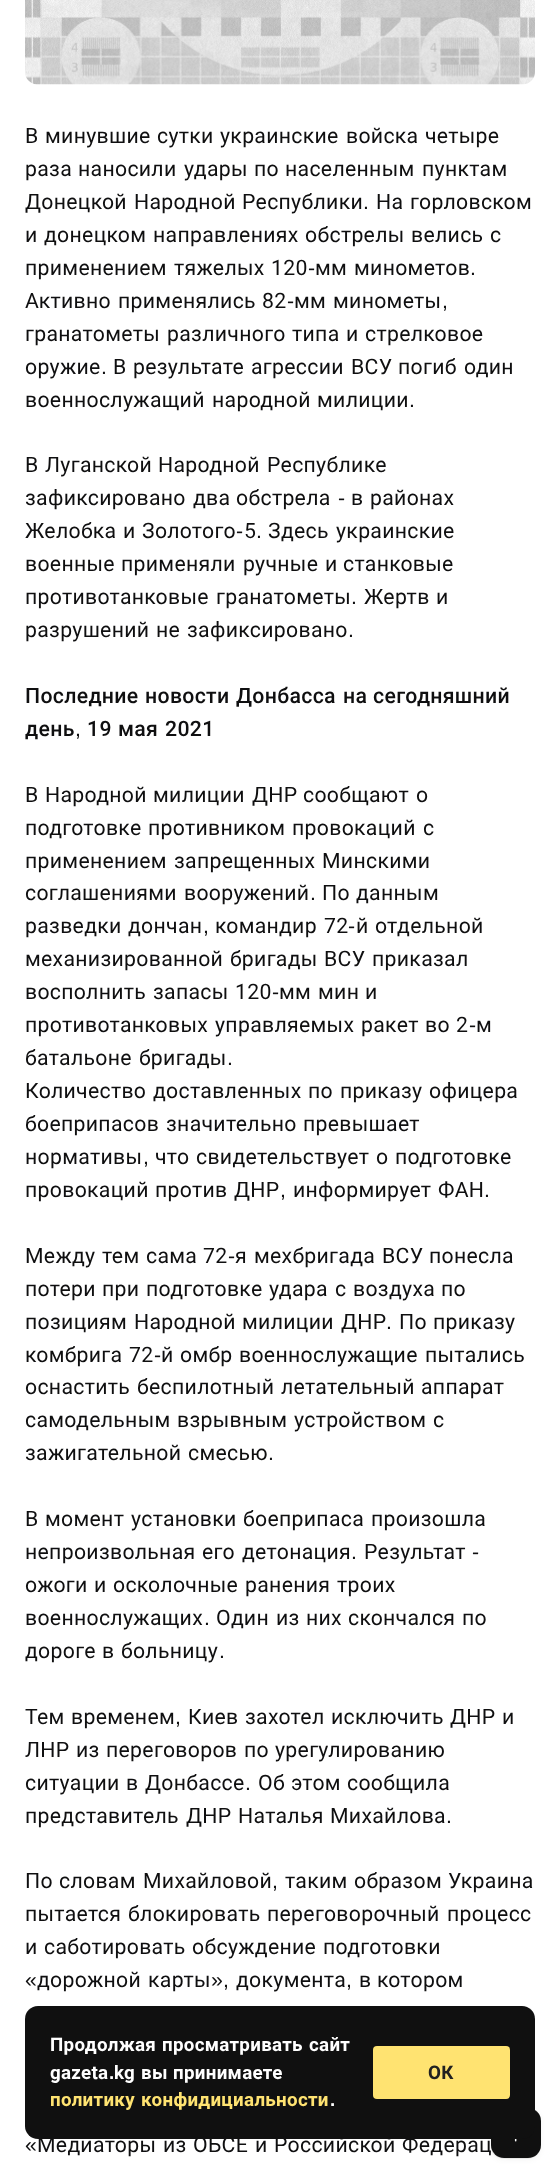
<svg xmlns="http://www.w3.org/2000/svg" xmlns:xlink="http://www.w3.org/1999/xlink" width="559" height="2176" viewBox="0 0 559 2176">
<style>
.cls-1{font:21.25px Roboto;letter-spacing:0.3px;fill:#0f0f10}
.cls-2{font:21.25px Liberation Sans;letter-spacing:0.3px;fill:#0f0f10}
.cls-3{font:500 21.25px Roboto;letter-spacing:0.3px;fill:#0f0f10}
.cls-4{font:bold 18.75px Roboto;letter-spacing:0.3px;fill:#212121}
.cls-5{font:bold 18.75px Liberation Sans;letter-spacing:0.3px;fill:#ffffff}
.cls-6{font:bold 18.75px Roboto;letter-spacing:0.3px;fill:#ffe371}
.cls-7{font:bold 18.75px Roboto;letter-spacing:0.3px;fill:#ffffff}
</style>
<rect width="100%" height="100%" fill="#ffffff"/>
<image xlink:href="image0.png" x="25" y="0" width="510" height="85"/>
<path fill="#383230" fill-opacity="0.08" d="M491 2119V2149C494 2161 507 2159 516 2159C525 2159 538 2161 541 2148C538 2159 525 2158 516 2158C509 2158 498 2159 493 2152L492 2148Z"/>
<rect fill="#383230" fill-opacity="0.05" filter="blur(2.5px)" x="491" y="2110" width="50" height="50" rx="13"/>
<text class="cls-1" x="25" y="143">В</text>
<text class="cls-1" x="45" y="143">минувшие</text>
<text class="cls-1" x="157" y="143">сутки</text>
<text class="cls-1" x="220" y="143">украинские</text>
<text class="cls-1" x="346" y="143">войска</text>
<text class="cls-1" x="425" y="143">четыре</text>
<text class="cls-1" x="25" y="176">раза</text>
<text class="cls-1" x="78" y="176">наносили</text>
<text class="cls-1" x="184" y="176">удары</text>
<text class="cls-1" x="254" y="176">по</text>
<text class="cls-1" x="285" y="176">населенным</text>
<text class="cls-1" x="422" y="176">пунктам</text>
<text class="cls-1" x="25" y="209">Донецкой</text>
<text class="cls-1" x="134" y="209">Народной</text>
<text class="cls-1" x="242" y="209">Республики</text>
<text class="cls-2" x="363" y="209">.</text>
<text class="cls-1" x="376" y="209">На</text>
<text class="cls-1" x="410" y="209">горловском</text>
<text class="cls-1" x="25" y="242">и</text>
<text class="cls-1" x="44" y="242">донецком</text>
<text class="cls-1" x="153" y="242">направлениях</text>
<text class="cls-1" x="305" y="242">обстрелы</text>
<text class="cls-1" x="411" y="242">велись</text>
<text class="cls-1" x="490" y="242">с</text>
<text class="cls-1" x="25" y="275">применением</text>
<text class="cls-1" x="174" y="275">тяжелых</text>
<text class="cls-1" x="271" y="275">120</text>
<text class="cls-2" x="308" y="275">-</text>
<text class="cls-1" x="315" y="275">мм</text>
<text class="cls-1" x="354" y="275">минометов</text>
<text class="cls-2" x="470" y="275">.</text>
<text class="cls-1" x="25" y="308">Активно</text>
<text class="cls-1" x="118" y="308">применялись</text>
<text class="cls-1" x="262" y="308">82</text>
<text class="cls-2" x="287" y="308">-</text>
<text class="cls-1" x="294" y="308">мм</text>
<text class="cls-1" x="333" y="308">минометы</text>
<text class="cls-2" x="442" y="308">,</text>
<text class="cls-1" x="25" y="341">гранатометы</text>
<text class="cls-1" x="167" y="341">различного</text>
<text class="cls-1" x="292" y="341">типа</text>
<text class="cls-1" x="346" y="341">и</text>
<text class="cls-1" x="365" y="341">стрелковое</text>
<text class="cls-1" x="25" y="374">оружие</text>
<text class="cls-2" x="101" y="374">.</text>
<text class="cls-1" x="113" y="374">В</text>
<text class="cls-1" x="133" y="374">результате</text>
<text class="cls-1" x="251" y="374">агрессии</text>
<text class="cls-1" x="351" y="374">ВСУ</text>
<text class="cls-1" x="398" y="374">погиб</text>
<text class="cls-1" x="464" y="374">один</text>
<text class="cls-1" x="25" y="407">военнослужащий</text>
<text class="cls-1" x="212" y="407">народной</text>
<text class="cls-1" x="317" y="407">милиции</text>
<text class="cls-2" x="409" y="407">.</text>
<text class="cls-1" x="25" y="472">В</text>
<text class="cls-1" x="45" y="472">Луганской</text>
<text class="cls-1" x="158" y="472">Народной</text>
<text class="cls-1" x="267" y="472">Республике</text>
<text class="cls-1" x="25" y="505">зафиксировано</text>
<text class="cls-1" x="193" y="505">два</text>
<text class="cls-1" x="236" y="505">обстрела</text>
<text class="cls-2" x="338" y="505">-</text>
<text class="cls-1" x="351" y="505">в</text>
<text class="cls-1" x="370" y="505">районах</text>
<text class="cls-1" x="25" y="538">Желобка</text>
<text class="cls-1" x="123" y="538">и</text>
<text class="cls-1" x="142" y="538">Золотого</text>
<text class="cls-2" x="236" y="538">-</text>
<text class="cls-1" x="244" y="538">5</text>
<text class="cls-1" x="268" y="538">Здесь</text>
<text class="cls-1" x="336" y="538">украинские</text>
<text class="cls-2" x="256" y="538">.</text>
<text class="cls-1" x="25" y="571">военные</text>
<text class="cls-1" x="121" y="571">применяли</text>
<text class="cls-1" x="243" y="571">ручные</text>
<text class="cls-1" x="325" y="571">и</text>
<text class="cls-1" x="343" y="571">станковые</text>
<text class="cls-1" x="25" y="604">противотанковые</text>
<text class="cls-1" x="216" y="604">гранатометы</text>
<text class="cls-2" x="351" y="604">.</text>
<text class="cls-1" x="364" y="604">Жертв</text>
<text class="cls-1" x="436" y="604">и</text>
<text class="cls-1" x="25" y="637">разрушений</text>
<text class="cls-1" x="156" y="637">не</text>
<text class="cls-1" x="187" y="637">зафиксировано</text>
<text class="cls-2" x="348" y="637">.</text>
<text class="cls-3" x="25" y="703">Последние</text>
<text class="cls-3" x="145" y="703">новости</text>
<text class="cls-3" x="236" y="703">Донбасса</text>
<text class="cls-3" x="343" y="703">на</text>
<text class="cls-3" x="373" y="703">сегодняшний</text>
<text class="cls-3" x="25" y="736">день</text>
<text class="cls-2" x="75" y="736">,</text>
<text class="cls-3" x="87" y="736">19</text>
<text class="cls-3" x="118" y="736">мая</text>
<text class="cls-3" x="165" y="736">2021</text>
<text class="cls-1" x="25" y="802">В</text>
<text class="cls-1" x="45" y="802">Народной</text>
<text class="cls-1" x="153" y="802">милиции</text>
<text class="cls-1" x="252" y="802">ДНР</text>
<text class="cls-1" x="303" y="802">сообщают</text>
<text class="cls-1" x="416" y="802">о</text>
<text class="cls-1" x="25" y="835">подготовке</text>
<text class="cls-1" x="148" y="835">противником</text>
<text class="cls-1" x="292" y="835">провокаций</text>
<text class="cls-1" x="423" y="835">с</text>
<text class="cls-1" x="25" y="868">применением</text>
<text class="cls-1" x="174" y="868">запрещенных</text>
<text class="cls-1" x="322" y="868">Минскими</text>
<text class="cls-1" x="25" y="900">соглашениями</text>
<text class="cls-1" x="184" y="900">вооружений</text>
<text class="cls-2" x="310" y="900">.</text>
<text class="cls-1" x="322" y="900">По</text>
<text class="cls-1" x="356" y="900">данным</text>
<text class="cls-1" x="25" y="933">разведки</text>
<text class="cls-1" x="128" y="933">дончан</text>
<text class="cls-1" x="215" y="933">командир</text>
<text class="cls-1" x="324" y="933">72</text>
<text class="cls-2" x="348" y="933">-</text>
<text class="cls-1" x="356" y="933">й</text>
<text class="cls-1" x="375" y="933">отдельной</text>
<text class="cls-2" x="203" y="933">,</text>
<text class="cls-1" x="25" y="966">механизированной</text>
<text class="cls-1" x="230" y="966">бригады</text>
<text class="cls-1" x="324" y="966">ВСУ</text>
<text class="cls-1" x="372" y="966">приказал</text>
<text class="cls-1" x="25" y="999">восполнить</text>
<text class="cls-1" x="153" y="999">запасы</text>
<text class="cls-1" x="235" y="999">120</text>
<text class="cls-2" x="272" y="999">-</text>
<text class="cls-1" x="279" y="999">мм</text>
<text class="cls-1" x="318" y="999">мин</text>
<text class="cls-1" x="365" y="999">и</text>
<text class="cls-1" x="25" y="1032">противотанковых</text>
<text class="cls-1" x="215" y="1032">управляемых</text>
<text class="cls-1" x="361" y="1032">ракет</text>
<text class="cls-1" x="425" y="1032">во</text>
<text class="cls-1" x="456" y="1032">2</text>
<text class="cls-2" x="469" y="1032">-</text>
<text class="cls-1" x="476" y="1032">м</text>
<text class="cls-1" x="25" y="1065">батальоне</text>
<text class="cls-1" x="139" y="1065">бригады</text>
<text class="cls-2" x="227" y="1065">.</text>
<text class="cls-1" x="25" y="1098">Количество</text>
<text class="cls-1" x="153" y="1098">доставленных</text>
<text class="cls-1" x="308" y="1098">по</text>
<text class="cls-1" x="340" y="1098">приказу</text>
<text class="cls-1" x="429" y="1098">офицера</text>
<text class="cls-1" x="25" y="1131">боеприпасов</text>
<text class="cls-1" x="166" y="1131">значительно</text>
<text class="cls-1" x="303" y="1131">превышает</text>
<text class="cls-1" x="25" y="1164">нормативы</text>
<text class="cls-2" x="143" y="1164">,</text>
<text class="cls-1" x="155" y="1164">что</text>
<text class="cls-1" x="196" y="1164">свидетельствует</text>
<text class="cls-1" x="376" y="1164">о</text>
<text class="cls-1" x="395" y="1164">подготовке</text>
<text class="cls-1" x="25" y="1197">провокаций</text>
<text class="cls-1" x="155" y="1197">против</text>
<text class="cls-1" x="234" y="1197">ДНР</text>
<text class="cls-2" x="280" y="1197">,</text>
<text class="cls-1" x="293" y="1197">информирует</text>
<text class="cls-1" x="438" y="1197">ФАН</text>
<text class="cls-2" x="484" y="1197">.</text>
<text class="cls-1" x="25" y="1263">Между</text>
<text class="cls-1" x="102" y="1263">тем</text>
<text class="cls-1" x="146" y="1263">сама</text>
<text class="cls-1" x="203" y="1263">72</text>
<text class="cls-2" x="228" y="1263">-</text>
<text class="cls-1" x="235" y="1263">я</text>
<text class="cls-1" x="254" y="1263">мехбригада</text>
<text class="cls-1" x="382" y="1263">ВСУ</text>
<text class="cls-1" x="429" y="1263">понесла</text>
<text class="cls-1" x="25" y="1296">потери</text>
<text class="cls-1" x="102" y="1296">при</text>
<text class="cls-1" x="146" y="1296">подготовке</text>
<text class="cls-1" x="269" y="1296">удара</text>
<text class="cls-1" x="335" y="1296">с</text>
<text class="cls-1" x="353" y="1296">воздуха</text>
<text class="cls-1" x="441" y="1296">по</text>
<text class="cls-1" x="25" y="1329">позициям</text>
<text class="cls-1" x="134" y="1329">Народной</text>
<text class="cls-1" x="242" y="1329">милиции</text>
<text class="cls-1" x="341" y="1329">ДНР</text>
<text class="cls-2" x="386" y="1329">.</text>
<text class="cls-1" x="399" y="1329">По</text>
<text class="cls-1" x="433" y="1329">приказу</text>
<text class="cls-1" x="25" y="1362">комбрига</text>
<text class="cls-1" x="129" y="1362">72</text>
<text class="cls-2" x="154" y="1362">-</text>
<text class="cls-1" x="161" y="1362">й</text>
<text class="cls-1" x="180" y="1362">омбр</text>
<text class="cls-1" x="239" y="1362">военнослужащие</text>
<text class="cls-1" x="425" y="1362">пытались</text>
<text class="cls-1" x="25" y="1394">оснастить</text>
<text class="cls-1" x="137" y="1394">беспилотный</text>
<text class="cls-1" x="281" y="1394">летательный</text>
<text class="cls-1" x="421" y="1394">аппарат</text>
<text class="cls-1" x="25" y="1427">самодельным</text>
<text class="cls-1" x="177" y="1427">взрывным</text>
<text class="cls-1" x="294" y="1427">устройством</text>
<text class="cls-1" x="433" y="1427">с</text>
<text class="cls-1" x="25" y="1460">зажигательной</text>
<text class="cls-1" x="188" y="1460">смесью</text>
<text class="cls-2" x="268" y="1460">.</text>
<text class="cls-1" x="25" y="1526">В</text>
<text class="cls-1" x="45" y="1526">момент</text>
<text class="cls-1" x="131" y="1526">установки</text>
<text class="cls-1" x="243" y="1526">боеприпаса</text>
<text class="cls-1" x="371" y="1526">произошла</text>
<text class="cls-1" x="25" y="1559">непроизвольная</text>
<text class="cls-1" x="202" y="1559">его</text>
<text class="cls-1" x="242" y="1559">детонация</text>
<text class="cls-1" x="364" y="1559">Результат</text>
<text class="cls-2" x="472" y="1559">-</text>
<text class="cls-2" x="351" y="1559">.</text>
<text class="cls-1" x="25" y="1592">ожоги</text>
<text class="cls-1" x="94" y="1592">и</text>
<text class="cls-1" x="113" y="1592">осколочные</text>
<text class="cls-1" x="245" y="1592">ранения</text>
<text class="cls-1" x="337" y="1592">троих</text>
<text class="cls-1" x="25" y="1625">военнослужащих</text>
<text class="cls-2" x="204" y="1625">.</text>
<text class="cls-1" x="216" y="1625">Один</text>
<text class="cls-1" x="276" y="1625">из</text>
<text class="cls-1" x="306" y="1625">них</text>
<text class="cls-1" x="348" y="1625">скончался</text>
<text class="cls-1" x="462" y="1625">по</text>
<text class="cls-1" x="25" y="1658">дороге</text>
<text class="cls-1" x="102" y="1658">в</text>
<text class="cls-1" x="121" y="1658">больницу</text>
<text class="cls-2" x="219" y="1658">.</text>
<text class="cls-1" x="25" y="1724">Тем</text>
<text class="cls-1" x="71" y="1724">временем</text>
<text class="cls-2" x="175" y="1724">,</text>
<text class="cls-1" x="188" y="1724">Киев</text>
<text class="cls-1" x="245" y="1724">захотел</text>
<text class="cls-1" x="331" y="1724">исключить</text>
<text class="cls-1" x="450" y="1724">ДНР</text>
<text class="cls-1" x="502" y="1724">и</text>
<text class="cls-1" x="25" y="1757">ЛНР</text>
<text class="cls-1" x="76" y="1757">из</text>
<text class="cls-1" x="106" y="1757">переговоров</text>
<text class="cls-1" x="244" y="1757">по</text>
<text class="cls-1" x="275" y="1757">урегулированию</text>
<text class="cls-1" x="25" y="1790">ситуации</text>
<text class="cls-1" x="126" y="1790">в</text>
<text class="cls-1" x="145" y="1790">Донбассе</text>
<text class="cls-2" x="245" y="1790">.</text>
<text class="cls-1" x="258" y="1790">Об</text>
<text class="cls-1" x="291" y="1790">этом</text>
<text class="cls-1" x="347" y="1790">сообщила</text>
<text class="cls-1" x="25" y="1823">представитель</text>
<text class="cls-1" x="186" y="1823">ДНР</text>
<text class="cls-1" x="238" y="1823">Наталья</text>
<text class="cls-1" x="330" y="1823">Михайлова</text>
<text class="cls-2" x="446" y="1823">.</text>
<text class="cls-1" x="25" y="1888">По</text>
<text class="cls-1" x="59" y="1888">словам</text>
<text class="cls-1" x="143" y="1888">Михайловой</text>
<text class="cls-2" x="272" y="1888">,</text>
<text class="cls-1" x="285" y="1888">таким</text>
<text class="cls-1" x="354" y="1888">образом</text>
<text class="cls-1" x="448" y="1888">Украина</text>
<text class="cls-1" x="25" y="1921">пытается</text>
<text class="cls-1" x="128" y="1921">блокировать</text>
<text class="cls-1" x="267" y="1921">переговорочный</text>
<text class="cls-1" x="447" y="1921">процесс</text>
<text class="cls-1" x="25" y="1954">и</text>
<text class="cls-1" x="44" y="1954">саботировать</text>
<text class="cls-1" x="192" y="1954">обсуждение</text>
<text class="cls-1" x="323" y="1954">подготовки</text>
<text class="cls-2" x="25" y="1987">«</text>
<text class="cls-1" x="37" y="1987">дорожной</text>
<text class="cls-1" x="148" y="1987">карты</text>
<text class="cls-2" x="211" y="1987">»,</text>
<text class="cls-1" x="236" y="1987">документа</text>
<text class="cls-2" x="346" y="1987">,</text>
<text class="cls-1" x="359" y="1987">в</text>
<text class="cls-1" x="377" y="1987">котором</text>
<text class="cls-2" x="25" y="2152">«</text>
<text class="cls-1" x="37" y="2152">Медиаторы</text>
<text class="cls-1" x="163" y="2152">из</text>
<text class="cls-1" x="193" y="2152">ОБСЕ</text>
<text class="cls-1" x="255" y="2152">и</text>
<text class="cls-1" x="274" y="2152">Российской</text>
<text class="cls-1" x="402" y="2152">Федерац</text>
<rect fill="#101010" x="491" y="2108" width="50" height="50" rx="13"/>
<rect fill="#101010" x="25" y="2006" width="510" height="133" rx="13"/>
<rect fill="#ffe371" x="373" y="2046" width="137" height="53" rx="4"/>
<text class="cls-4" x="428" y="2079">ОК</text>
<text class="cls-5" x="330" y="2106">.</text>
<text class="cls-6" x="141" y="2106">конфидициальности</text>
<text class="cls-6" x="50" y="2106">политику</text>
<text class="cls-7" x="173" y="2079">принимаете</text>
<text class="cls-7" x="141" y="2079">вы</text>
<text class="cls-7" x="114" y="2079">kg</text>
<text class="cls-5" x="109" y="2079">.</text>
<text class="cls-7" x="50" y="2079">gazeta</text>
<text class="cls-7" x="309" y="2051">сайт</text>
<text class="cls-7" x="162" y="2051">просматривать</text>
<text class="cls-7" x="50" y="2051">Продолжая</text>
<image xlink:href="image1.png" x="514" y="2139" width="3" height="3"/>
</svg>
